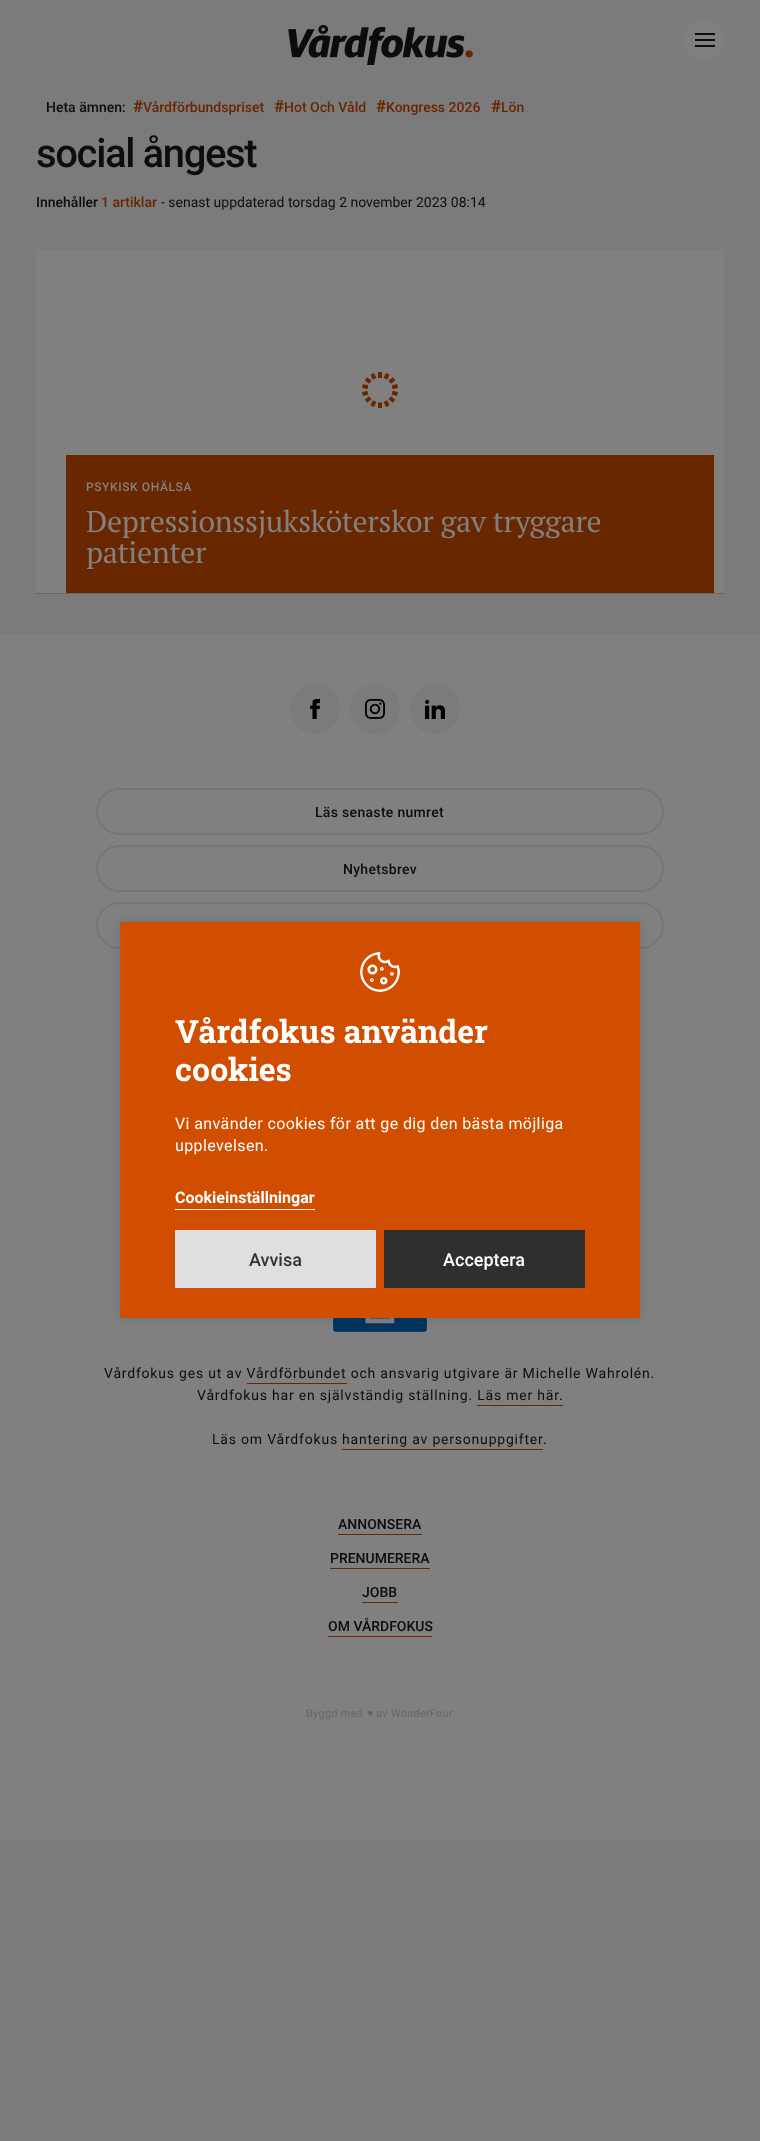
<svg xmlns="http://www.w3.org/2000/svg" xmlns:xlink="http://www.w3.org/1999/xlink" width="760" height="2141" viewBox="0 0 760 2141">
<style>
.cls-1{font:500 14px Roboto;fill:#0d0d0d}
.cls-2{font:bold 17px Roboto;fill:#692700}
.cls-3{font:500 14px Roboto;fill:#692700}
.cls-4{font:500 40px Roboto;letter-spacing:-1.4px;fill:#0d0d0d}
.cls-5{font:14px Roboto;fill:#0d0d0d}
.cls-6{font:500 12px Roboto;letter-spacing:0.6px;fill:#808080}
.cls-7{font:30px PT Serif;letter-spacing:-0.3px;fill:#808080}
.cls-8{font:500 14px Roboto;letter-spacing:0.3px;fill:#0d0d0d}
.cls-9{font:14px Roboto;letter-spacing:0.8px;fill:#0d0d0d}
.cls-10{font:11px Roboto;letter-spacing:0.25px;fill:#676767}
.cls-11{font:11px Liberation Sans;letter-spacing:0.25px;fill:#676767}
.cls-12{font:bold 32px Roboto Slab;fill:#ffffff}
.cls-13{font:16px Roboto;letter-spacing:0.4px;fill:#ffffff}
.cls-14{font:bold 16px Roboto;fill:#ffffff}
.cls-15{font:500 18px Roboto;fill:#333333}
.cls-16{font:500 18px Roboto;fill:#ffffff}
</style>
<rect width="100%" height="100%" fill="#7b7b7b"/>
<rect fill="#808080" x="0" y="83" width="760" height="1"/>
<image xlink:href="image0.png" x="288" y="25" width="185" height="40"/>
<circle fill="#808080" cx="704" cy="40" r="20"/>
<rect fill="#0d0d0d" x="695" y="33" width="20" height="2"/>
<rect fill="#0d0d0d" x="695" y="39" width="20" height="2"/>
<rect fill="#0d0d0d" x="695" y="45" width="20" height="2"/>
<rect fill="#808080" x="36" y="250" width="688" height="343"/>
<rect fill="#676767" x="36" y="593" width="688" height="1"/>
<image xlink:href="image1.png" x="362" y="372" width="36" height="36"/>
<rect fill="#692700" x="66" y="455" width="648" height="138"/>
<rect fill="#808080" x="0" y="634" width="760" height="1206"/>
<circle fill="#7b7b7b" cx="315" cy="709" r="25"/>
<image xlink:href="image2.png" x="310" y="699" width="10" height="20"/>
<circle fill="#7b7b7b" cx="375" cy="709" r="25"/>
<image xlink:href="image3.png" x="365" y="699" width="20" height="20"/>
<circle fill="#7b7b7b" cx="435" cy="709" r="25"/>
<image xlink:href="image4.png" x="425" y="699" width="20" height="20"/>
<rect fill="none" stroke="#757575" stroke-width="2" x="97" y="789" width="566" height="45" rx="22.5"/>
<rect fill="none" stroke="#757575" stroke-width="2" x="97" y="846" width="566" height="45" rx="22.5"/>
<rect fill="none" stroke="#757575" stroke-width="2" x="97" y="903" width="566" height="45" rx="22.5"/>
<image xlink:href="image5.png" x="333" y="1318" width="94" height="14"/>
<rect fill="#692700" x="247" y="1383" width="100" height="1"/>
<rect fill="#692700" x="477" y="1405" width="86" height="1"/>
<rect fill="#692700" x="342" y="1449" width="201" height="1"/>
<rect fill="#692700" x="338" y="1534" width="84" height="1"/>
<rect fill="#692700" x="330" y="1568" width="100" height="1"/>
<rect fill="#692700" x="362" y="1602" width="36" height="1"/>
<rect fill="#692700" x="328" y="1636" width="104" height="1"/>
<rect fill="#013946" fill-opacity="0.2" filter="blur(6px)" x="120" y="922" width="520" height="396" rx="3"/>
<rect fill="#d14e00" x="120" y="922" width="520" height="396" rx="3"/>
<image xlink:href="image6.png" x="360" y="952" width="40" height="40"/>
<rect fill="#ffffff" x="175" y="1209" width="140" height="1"/>
<rect fill="#dedfe0" x="175" y="1230" width="201" height="58"/>
<rect fill="#2f2f2f" x="384" y="1230" width="201" height="58"/>
<text class="cls-1" x="46" y="112">Heta ämnen:</text>
<text class="cls-2" x="133" y="112">#</text>
<text class="cls-3" x="143" y="112">Vårdförbundspriset</text>
<text class="cls-2" x="274" y="112">#</text>
<text class="cls-3" x="284" y="112">Hot Och Våld</text>
<text class="cls-2" x="376" y="112">#</text>
<text class="cls-3" x="386" y="112">Kongress 2026</text>
<text class="cls-2" x="491" y="112">#</text>
<text class="cls-3" x="501" y="112">Lön</text>
<text class="cls-4" x="36" y="167">social ångest</text>
<text class="cls-1" x="36" y="207">Innehåller</text>
<text class="cls-3" x="101" y="207">1 artiklar</text>
<text class="cls-5" x="161" y="207">- senast uppdaterad torsdag 2 november 2023 08:14</text>
<text class="cls-6" x="86" y="491">PSYKISK OHÄLSA</text>
<text class="cls-7"><tspan x="86" y="532">Depressionssjuksköterskor gav tryggare</tspan><tspan x="86" y="563">patienter</tspan></text>
<text class="cls-8" x="315" y="817">Läs senaste numret</text>
<text class="cls-8" x="343" y="874">Nyhetsbrev</text>
<text class="cls-9" x="104" y="1378">Vårdfokus ges ut av Vårdförbundet och ansvarig utgivare är Michelle Wahrolén.</text>
<text class="cls-9" x="197" y="1400">Vårdfokus har en självständig ställning. Läs mer här.</text>
<text class="cls-9" x="212" y="1444">Läs om Vårdfokus</text>
<text class="cls-9" x="342" y="1444">hantering av personuppgifter</text>
<text class="cls-9" x="543" y="1444">.</text>
<text class="cls-1" x="338" y="1529">ANNONSERA</text>
<text class="cls-1" x="330" y="1563">PRENUMERERA</text>
<text class="cls-1" x="362" y="1597">JOBB</text>
<text class="cls-1" x="328" y="1631">OM VÅRDFOKUS</text>
<text class="cls-10" x="306" y="1717">Byggd med</text>
<text class="cls-11" x="367" y="1717">♥︎</text>
<text class="cls-10" x="376" y="1717">av WonderFour</text>
<text class="cls-12"><tspan x="175" y="1043">Vårdfokus använder</tspan><tspan x="175" y="1081">cookies</tspan></text>
<text class="cls-13"><tspan x="175" y="1129">Vi använder cookies för att ge dig den bästa möjliga</tspan><tspan x="175" y="1151">upplevelsen.</tspan></text>
<text class="cls-14" x="175" y="1203">Cookieinställningar</text>
<text class="cls-15" x="249" y="1266">Avvisa</text>
<text class="cls-16" x="443" y="1266">Acceptera</text>
</svg>
